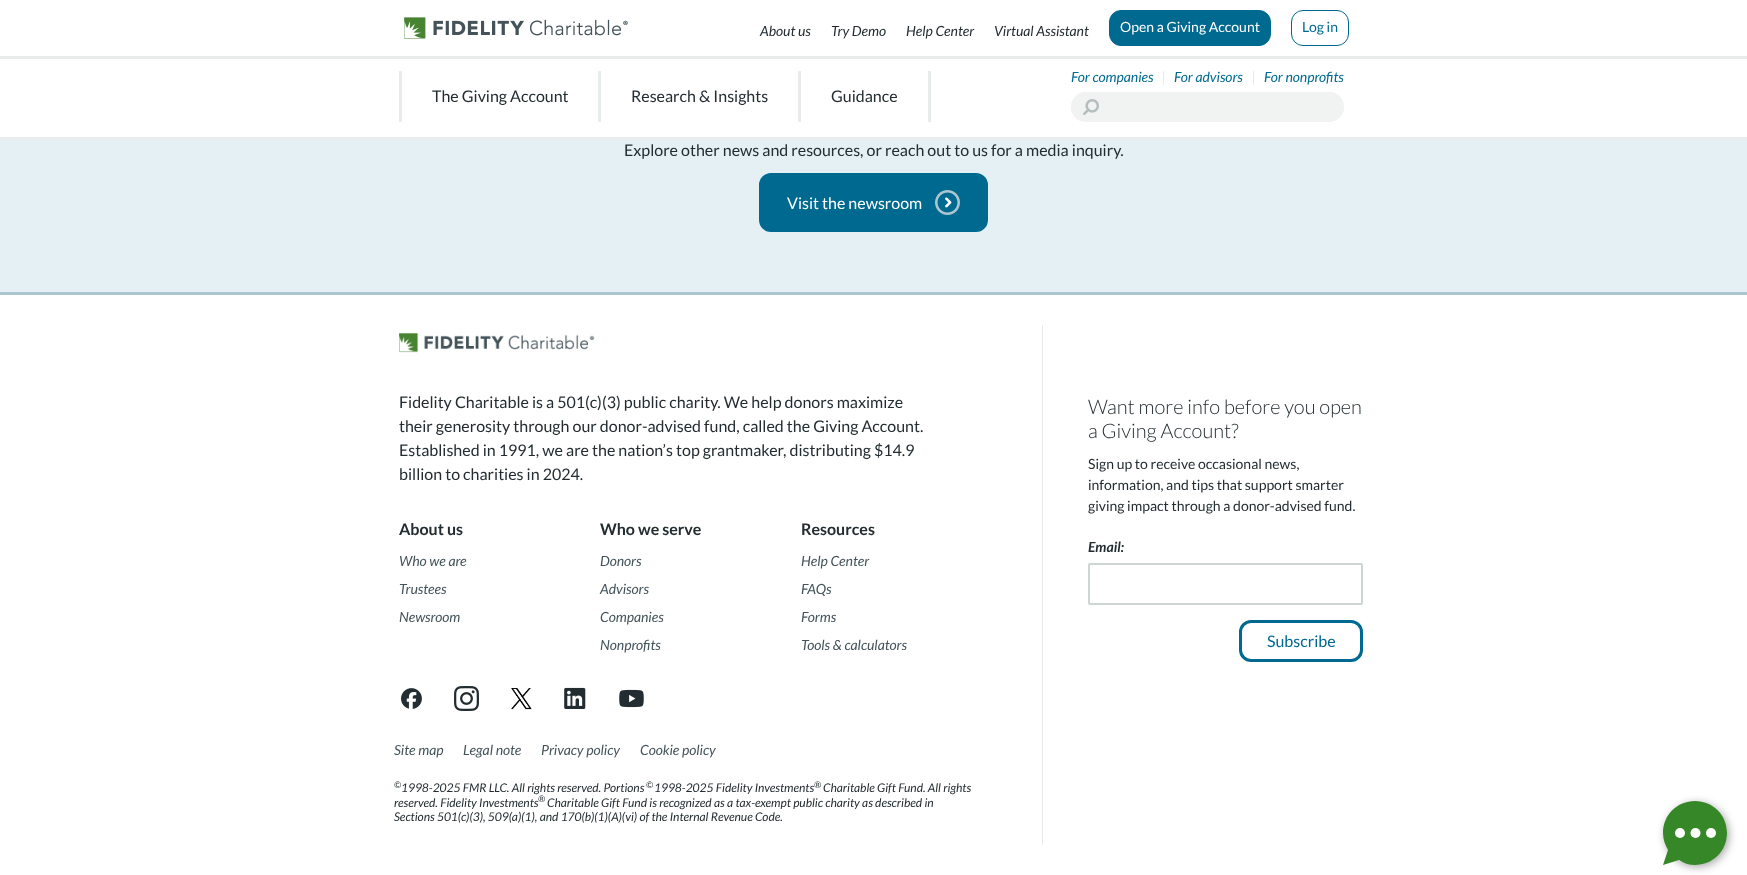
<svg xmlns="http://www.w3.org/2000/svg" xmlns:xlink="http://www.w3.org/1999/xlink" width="1747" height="875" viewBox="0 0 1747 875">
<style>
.cls-1{font:italic 14px Lato;fill:#232d31}
.cls-2{font:14px Lato;fill:#ffffff}
.cls-3{font:14px Lato;fill:#006990}
.cls-4{font:italic 14px Lato;fill:#006990}
.cls-5{font:16px Lato;fill:#232d31}
.cls-6{font:16px Lato;fill:#ffffff}
.cls-7{font:bold 16px Lato;fill:#232d31}
.cls-8{font:italic 14px Lato;fill:#435359}
.cls-9{font:italic 9px Lato;fill:#232d31}
.cls-10{font:italic 12px Lato;fill:#232d31}
.cls-11{font:300 20px Lato;fill:#232d31}
.cls-12{font:14px Lato;fill:#232d31}
.cls-13{font:italic bold 14px Lato;fill:#232d31}
.cls-14{font:16px Lato;fill:#006990}
</style>
<rect width="100%" height="100%" fill="#ffffff"/>
<rect fill="#e8eceb" x="0" y="56" width="1747" height="3"/>
<image xlink:href="image0.png" x="404" y="17" width="224" height="22"/>
<rect fill="#006990" stroke="#006990" x="1109.5" y="10.5" width="161" height="35" rx="11.5"/>
<rect fill="none" stroke="#006990" x="1291.5" y="10.5" width="57" height="35" rx="11.5"/>
<rect fill="#e8eceb" x="0" y="137" width="1747" height="3"/>
<rect fill="#e8eceb" x="1163" y="71" width="1" height="14"/>
<rect fill="#e8eceb" x="1253" y="71" width="1" height="14"/>
<rect fill="#f0f3f2" x="1071" y="92" width="273" height="30" rx="15"/>
<image xlink:href="image1.png" x="1083" y="99" width="16" height="16"/>
<rect fill="none" stroke="#f0f3f2" stroke-width="2" x="1072" y="93" width="271" height="28" rx="14"/>
<rect fill="#e8eceb" x="598" y="71" width="3" height="51"/>
<rect fill="#e8eceb" x="399" y="71" width="3" height="51"/>
<rect fill="#e8eceb" x="798" y="71" width="3" height="51"/>
<rect fill="#e8eceb" x="928" y="71" width="3" height="51"/>
<rect fill="#e5f0f4" x="0" y="140" width="1747" height="152"/>
<rect fill="#006990" stroke="#006990" stroke-width="3" x="760.5" y="174.5" width="226" height="56" rx="10.5"/>
<image xlink:href="image2.png" x="935" y="190" width="25" height="25"/>
<rect fill="#abc6d1" x="0" y="292" width="1747" height="3"/>
<image xlink:href="image3.png" x="399" y="332" width="196" height="21"/>
<image xlink:href="image4.png" x="401" y="688" width="21" height="21"/>
<image xlink:href="image5.png" x="454" y="686" width="25" height="25"/>
<image xlink:href="image6.png" x="511" y="688" width="21" height="22"/>
<image xlink:href="image7.png" x="564" y="687" width="22" height="22"/>
<image xlink:href="image8.png" x="619" y="689" width="25" height="19"/>
<rect fill="#e8eceb" x="1042" y="325" width="1" height="520"/>
<rect fill="none" stroke="#cdd6d3" stroke-width="2" x="1089" y="564" width="273" height="40" rx="1"/>
<rect fill="none" stroke="#006990" stroke-width="3" x="1240.5" y="621.5" width="121" height="39" rx="10.5"/>
<rect fill="#000000" fill-opacity="0.35" filter="blur(4px)" x="1665" y="803" width="64" height="64" rx="32"/>
<circle fill="#efefef" cx="1695" cy="833" r="32"/>
<path fill="#368727" fill-rule="evenodd" d="M1695 865C1713 865 1727 851 1727 833C1727 815 1713 801 1695 801C1677 801 1663 815 1663 833C1663 839 1665 845 1668 850L1663 865L1679 860C1683 863 1689 865 1695 865Z"/>
<circle fill="#ffffff" cx="1680" cy="833" r="5"/>
<circle fill="#ffffff" cx="1695.5" cy="833" r="5"/>
<circle fill="#ffffff" cx="1711" cy="833" r="5"/>
<text class="cls-1" x="760" y="36">About us</text>
<text class="cls-1" x="831" y="36">Try Demo</text>
<text class="cls-1" x="906" y="36">Help Center</text>
<text class="cls-1" x="994" y="36">Virtual Assistant</text>
<text class="cls-2" x="1120" y="32">Open a Giving Account</text>
<text class="cls-3" x="1302" y="32">Log in</text>
<text class="cls-4" x="1071" y="82">For companies</text>
<text class="cls-4" x="1174" y="82">For advisors</text>
<text class="cls-4" x="1264" y="82">For nonprofits</text>
<text class="cls-5" x="432" y="102">The Giving Account</text>
<text class="cls-5" x="631" y="102">Research &amp; Insights</text>
<text class="cls-5" x="831" y="102">Guidance</text>
<text class="cls-5" x="624" y="156">Explore other news and resources, or reach out to us for a media inquiry.</text>
<text class="cls-6" x="787" y="209">Visit the newsroom</text>
<text class="cls-5"><tspan x="399" y="408">Fidelity Charitable is a 501(c)(3) public charity. We help donors maximize</tspan><tspan x="399" y="432">their generosity through our donor-advised fund, called the Giving Account.</tspan><tspan x="399" y="456">Established in 1991, we are the nation’s top grantmaker, distributing $14.9</tspan><tspan x="399" y="480">billion to charities in 2024.</tspan></text>
<text class="cls-7" x="399" y="535">About us</text>
<text class="cls-8" x="399" y="566">Who we are</text>
<text class="cls-8" x="399" y="594">Trustees</text>
<text class="cls-8" x="399" y="622">Newsroom</text>
<text class="cls-7" x="600" y="535">Who we serve</text>
<text class="cls-8" x="600" y="566">Donors</text>
<text class="cls-8" x="600" y="594">Advisors</text>
<text class="cls-8" x="600" y="622">Companies</text>
<text class="cls-8" x="600" y="650">Nonprofits</text>
<text class="cls-7" x="801" y="535">Resources</text>
<text class="cls-8" x="801" y="566">Help Center</text>
<text class="cls-8" x="801" y="594">FAQs</text>
<text class="cls-8" x="801" y="622">Forms</text>
<text class="cls-8" x="801" y="650">Tools &amp; calculators</text>
<text class="cls-8" x="394" y="755">Site map</text>
<text class="cls-8" x="463" y="755">Legal note</text>
<text class="cls-8" x="541" y="755">Privacy policy</text>
<text class="cls-8" x="640" y="755">Cookie policy</text>
<text class="cls-9" x="394" y="788">©</text>
<text class="cls-10" x="401" y="792">1998-2025 FMR LLC. All rights reserved. Portions</text>
<text class="cls-9" x="646" y="788">©</text>
<text class="cls-10" x="654" y="792">1998-2025 Fidelity Investments</text>
<text class="cls-9" x="814" y="788">®</text>
<text class="cls-10" x="823" y="792">Charitable Gift Fund. All rights</text>
<text class="cls-10" x="394" y="807">reserved. Fidelity Investments</text>
<text class="cls-9" x="538" y="802">®</text>
<text class="cls-10" x="547" y="807">Charitable Gift Fund is recognized as a tax-exempt public charity as described in</text>
<text class="cls-10" x="394" y="821">Sections 501(c)(3), 509(a)(1), and 170(b)(1)(A)(vi) of the Internal Revenue Code.</text>
<text class="cls-11"><tspan x="1088" y="414">Want more info before you open</tspan><tspan x="1088" y="438">a Giving Account?</tspan></text>
<text class="cls-12"><tspan x="1088" y="469">Sign up to receive occasional news,</tspan><tspan x="1088" y="490">information, and tips that support smarter</tspan><tspan x="1088" y="511">giving impact through a donor-advised fund.</tspan></text>
<text class="cls-13" x="1088" y="552">Email:</text>
<text class="cls-14" x="1267" y="647">Subscribe</text>
</svg>
